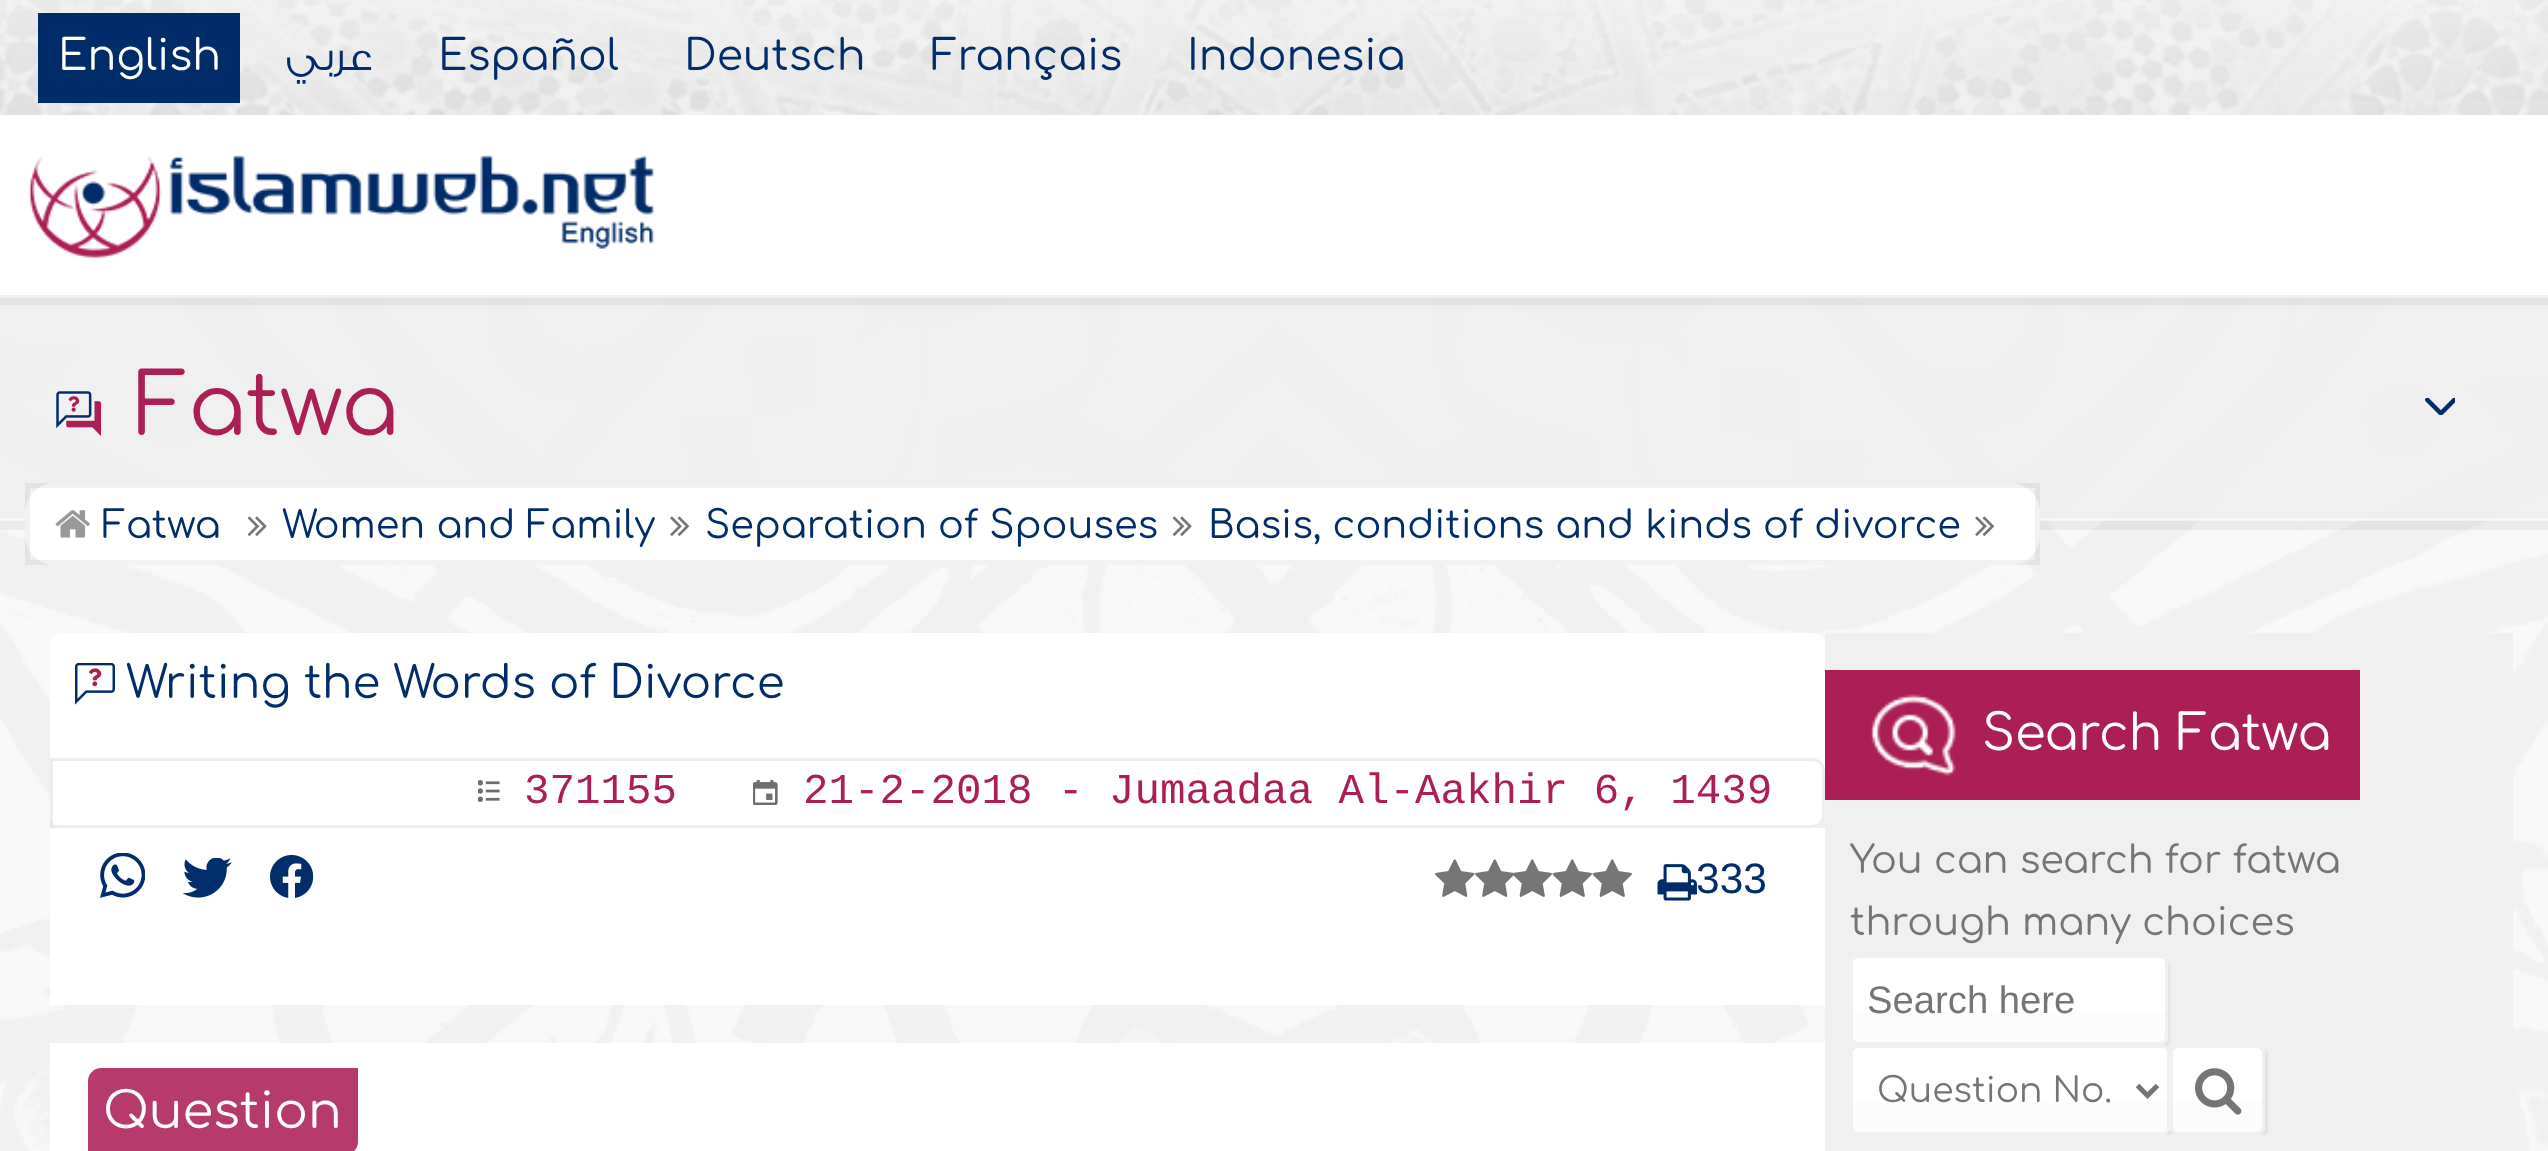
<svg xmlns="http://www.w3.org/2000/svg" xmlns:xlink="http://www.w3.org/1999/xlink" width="2548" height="1151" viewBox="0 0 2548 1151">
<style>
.cls-1{font:42.5px Comfortaa;fill:#ffffff}
.cls-2{font:300 42.5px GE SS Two;direction:rtl;fill:#012d6b}
.cls-3{font:42.5px Comfortaa;fill:#012d6b}
.cls-4{font:85px Comfortaa;fill:#ab1e56}
.cls-5{font:38.25px Comfortaa;fill:#012d6b}
.cls-6{font:45px Comfortaa;fill:#012d6b}
.cls-7{font:42.5px Liberation Mono;fill:#ab1e56}
.cls-8{font:42.5px Liberation Sans;fill:#012d6b}
.cls-9{font:49.75px Comfortaa;fill:#ffffff}
.cls-10{font:38.25px Comfortaa;fill:#757575}
.cls-11{font:38.25px Liberation Sans;fill:#757575}
.cls-12{font:34.5px Comfortaa;fill:#757575}
</style>
<defs>
<clipPath id="clip1"><rect x="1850" y="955" width="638" height="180"/></clipPath>
</defs>
<rect width="100%" height="100%" fill="#f9f9f9"/>
<rect fill="#f0f0f0" x="0" y="0" width="2548" height="115"/>
<image xlink:href="image0.png" x="0" y="0" width="2548" height="115"/>
<rect fill="#002d6a" x="38" y="13" width="202" height="90"/>
<image xlink:href="image2.png" x="0" y="300" width="2548" height="851"/>
<rect fill="#fcfcfc" x="0" y="295" width="2548" height="3"/>
<rect fill="#eeeeee" fill-opacity="0.75" x="0" y="298" width="2548" height="222"/>
<rect fill="#000000" fill-opacity="0.05" x="0" y="295" width="2548" height="10"/>
<rect fill="#ffffff" x="0" y="115" width="2548" height="180"/>
<image xlink:href="image1.png" x="30" y="155" width="624" height="103"/>
<rect fill="#000000" fill-opacity="0.05" x="0" y="520" width="2548" height="10"/>
<rect fill="#ffffff" fill-opacity="0.5" x="0" y="518" width="2548" height="3"/>
<image xlink:href="image3.png" x="56" y="391" width="46" height="45"/>
<image xlink:href="image4.png" x="2425" y="398" width="30" height="17"/>
<rect fill="#ffffff" x="25" y="483" width="2015" height="82" rx="30"/>
<rect fill="none" stroke="#000000" stroke-opacity="0.05" stroke-width="5" x="27.5" y="485.5" width="2010" height="77"/>
<image xlink:href="image5.png" x="55" y="510" width="35" height="28"/>
<image xlink:href="image6.png" x="247" y="516" width="20" height="20"/>
<image xlink:href="image7.png" x="670" y="516" width="20" height="20"/>
<image xlink:href="image6.png" x="1172" y="516" width="20" height="20"/>
<image xlink:href="image7.png" x="1975" y="516" width="20" height="20"/>
<rect fill="#ffffff" x="50" y="633" width="1775" height="195" rx="13"/>
<image xlink:href="image8.png" x="75" y="663" width="40" height="42"/>
<path fill="none" stroke="#707070" stroke-opacity="0.12" stroke-width="3" d="M51.5 759.5H1812C1818.5 759.5 1823.5 764.5 1823.5 771V815C1823.5 821.5 1818.5 826.5 1812 826.5H51.5Z"/>
<image xlink:href="image9.png" x="478" y="780" width="22" height="22"/>
<image xlink:href="image10.png" x="753" y="780" width="25" height="25"/>
<rect fill="#ffffff" x="50" y="828" width="1775" height="177"/>
<image xlink:href="image11.png" x="100" y="853" width="45" height="45"/>
<image xlink:href="image12.png" x="183" y="858" width="49" height="40"/>
<image xlink:href="image13.png" x="270" y="855" width="43" height="43"/>
<image xlink:href="image14.png" x="1435" y="859" width="40" height="38"/>
<image xlink:href="image15.png" x="1475" y="859" width="39" height="38"/>
<image xlink:href="image16.png" x="1513" y="859" width="39" height="38"/>
<image xlink:href="image17.png" x="1552" y="859" width="40" height="38"/>
<image xlink:href="image17.png" x="1592" y="859" width="40" height="38"/>
<image xlink:href="image18.png" x="1657" y="864" width="40" height="37"/>
<rect fill="#ffffff" x="50" y="1043" width="1775" height="108"/>
<path fill="#b63b6c" d="M101 1068H358V1142C358 1149 352 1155 345 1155H88V1081C88 1074 94 1068 101 1068Z"/>
<rect fill="#f0f0f0" x="1825" y="633" width="688" height="518"/>
<rect fill="#ab1e56" x="1825" y="670" width="535" height="130"/>
<image xlink:href="image19.png" x="1870" y="694" width="86" height="82"/>
<rect fill="#000000" fill-opacity="0.05" filter="blur(1px)" x="1853" y="958" width="317" height="90" rx="8"/>
<rect fill="#ffffff" x="1850" y="955" width="318" height="90" rx="8"/>
<path fill="#fcfcfc" d="M1853 1010V1038C1853 1041 1855 1043 1858 1043H2160C2163 1043 2165 1041 2165 1038V1008C2165 1010 2163 1012 2160 1012H1858C1856 1012 1854 1011 1853 1010Z"/>
<rect fill="none" stroke="#f0f0f0" stroke-width="3" x="1851.5" y="956.5" width="315" height="87" rx="6.5"/>
<g clip-path="url(#clip1)">
<rect fill="#000000" fill-opacity="0.05" filter="blur(1px)" x="1853" y="1048" width="320" height="90" rx="8"/>
</g>
<rect fill="#ffffff" x="1850" y="1045" width="320" height="90" rx="8"/>
<path fill="#fcfcfc" d="M1853 1100V1128C1853 1131 1855 1133 1858 1133H2163C2166 1133 2168 1131 2168 1128V1098C2168 1100 2165 1102 2162 1102H1858C1856 1102 1854 1101 1853 1100Z"/>
<rect fill="none" stroke="#f0f0f0" stroke-width="3" x="1851.5" y="1046.5" width="317" height="87" rx="6.5"/>
<path fill="none" stroke="#757575" stroke-width="5" d="M2137.5 1085.5L2147.5 1095.5L2157.5 1085.5"/>
<g clip-path="url(#clip1)">
<rect fill="#000000" fill-opacity="0.05" filter="blur(1px)" x="2173" y="1048" width="95" height="90" rx="8"/>
</g>
<rect fill="#ffffff" x="2170" y="1045" width="95" height="90" rx="8"/>
<path fill="#fcfcfc" d="M2173 1100V1128C2173 1131 2175 1133 2178 1133H2258C2261 1133 2263 1131 2263 1128V1053C2263 1052 2263 1051 2262 1050V1098C2262 1100 2260 1102 2258 1102H2178C2176 1102 2174 1101 2173 1100Z"/>
<rect fill="none" stroke="#f0f0f0" stroke-width="3" x="2171.5" y="1046.5" width="92" height="87" rx="6.5"/>
<image xlink:href="image20.png" x="2195" y="1068" width="47" height="47"/>
<text class="cls-1" x="58" y="70">English</text>
<text class="cls-2" x="373" y="70">عربي</text>
<text class="cls-3" x="438" y="70">Español</text>
<text class="cls-3" x="684" y="70">Deutsch</text>
<text class="cls-3" x="931" y="70">Français</text>
<text class="cls-3" x="1187" y="70">Indonesia</text>
<text class="cls-4" x="135" y="435">Fatwa</text>
<text class="cls-5" x="102" y="538">Fatwa</text>
<text class="cls-5" x="282" y="538">Women and Family</text>
<text class="cls-5" x="705" y="538">Separation of Spouses</text>
<text class="cls-5" x="1208" y="538">Basis, conditions and kinds of divorce</text>
<text class="cls-6" x="126" y="698">Writing the Words of Divorce</text>
<text class="cls-7" x="524" y="803">371155</text>
<text class="cls-7" x="803" y="803">21-2-2018 - Jumaadaa Al-Aakhir 6, 1439</text>
<text class="cls-8" x="1696" y="893">333</text>
<text class="cls-9" x="103" y="1128">Question</text>
<text class="cls-9" x="1982" y="750">Search Fatwa</text>
<text class="cls-10"><tspan x="1850" y="873">You can search for fatwa</tspan><tspan x="1850" y="935">through many choices</tspan></text>
<text class="cls-11" x="1867" y="1013">Search here</text>
<text class="cls-12" x="1877" y="1102">Question No.</text>
</svg>
